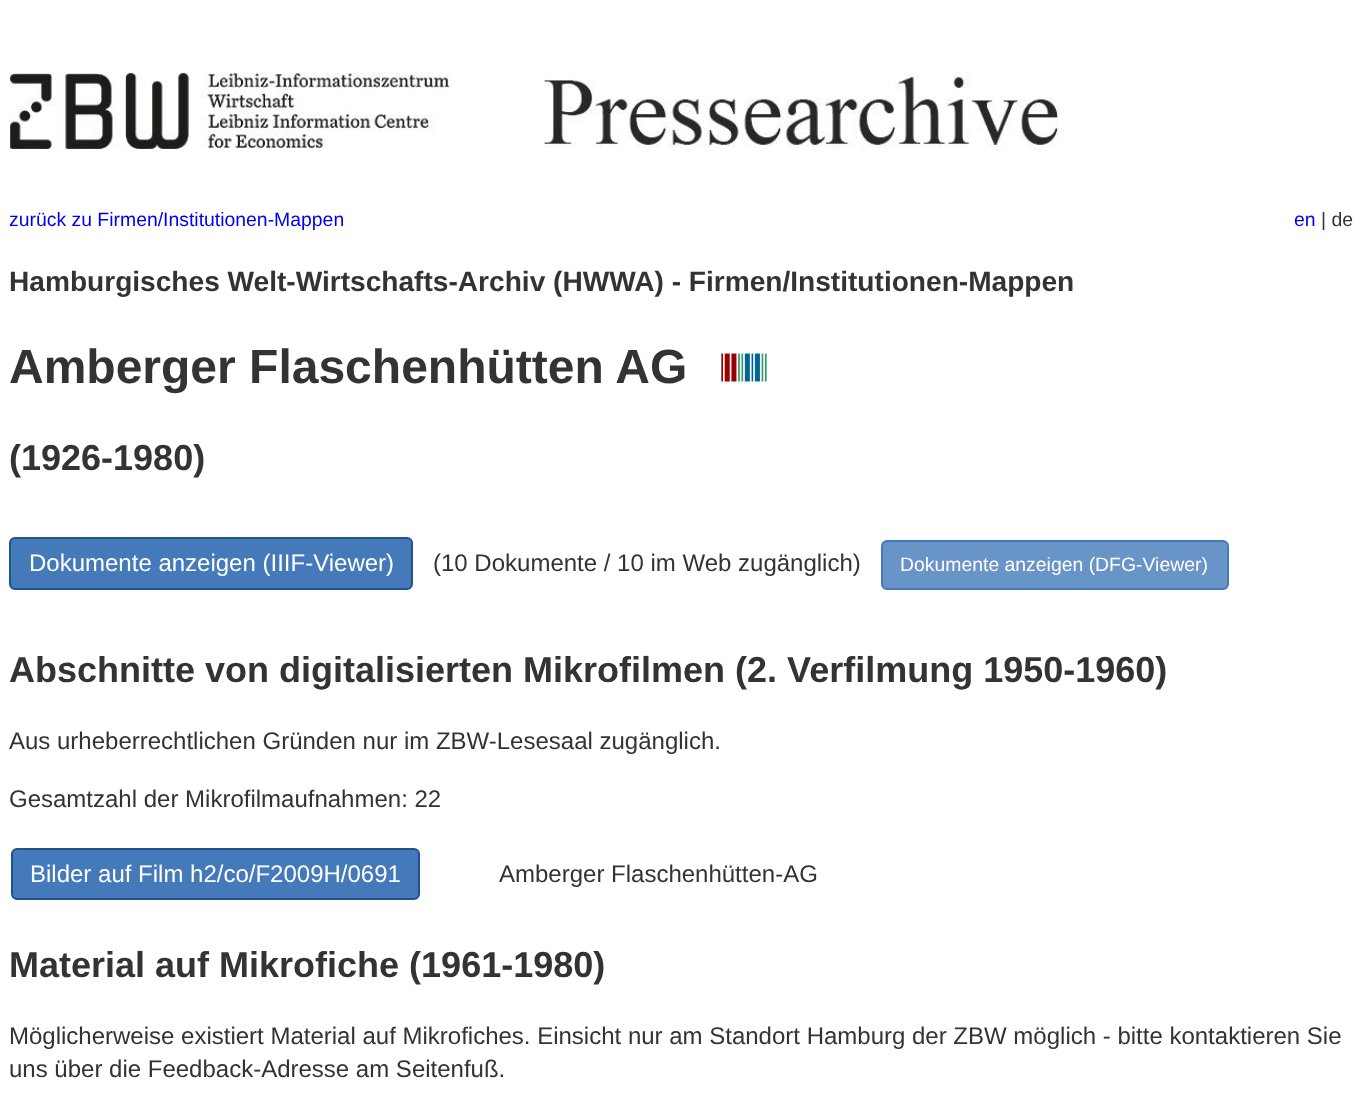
<svg xmlns="http://www.w3.org/2000/svg" xmlns:xlink="http://www.w3.org/1999/xlink" width="1362" height="1111" viewBox="0 0 1362 1111">
<style>
.cls-1{font:19.4px Liberation Sans;fill:#0000ee}
.cls-2{font:19.4px Liberation Sans;fill:#333333}
.cls-3{font:bold 28.1px Liberation Sans;fill:#333333}
.cls-4{font:bold 48px Liberation Sans;fill:#333333}
.cls-5{font:bold 36px Liberation Sans;fill:#333333}
.cls-6{font:24px Liberation Sans;fill:#ffffff}
.cls-7{font:24px Liberation Sans;fill:#333333}
.cls-8{font:19.4px Liberation Sans;fill:#ffffff}
</style>
<rect width="100%" height="100%" fill="#ffffff"/>
<image xlink:href="image0.png" x="9" y="72" width="1050" height="78"/>
<image xlink:href="image1.png" x="721" y="353" width="46" height="29"/>
<rect fill="#4479ba" stroke="#20538d" stroke-width="2" x="10" y="538" width="402" height="51" rx="5"/>
<rect fill="#6994c8" stroke="#4479ba" stroke-width="2" x="882" y="541" width="346" height="48" rx="5"/>
<rect fill="#4479ba" stroke="#20538d" stroke-width="2" x="12" y="849" width="407" height="50" rx="5"/>
<text class="cls-1" x="9" y="226">zurück zu Firmen/Institutionen-Mappen</text>
<text class="cls-1" x="1294" y="226">en</text>
<text class="cls-2" x="1321" y="226">| de</text>
<text class="cls-3" x="9" y="291">Hamburgisches Welt-Wirtschafts-Archiv (HWWA) - Firmen/Institutionen-Mappen</text>
<text class="cls-4" x="9" y="383">Amberger Flaschenhütten AG</text>
<text class="cls-5" x="9" y="470">(1926-1980)</text>
<text class="cls-6" x="29" y="571">Dokumente anzeigen (IIIF-Viewer)</text>
<text class="cls-7" x="433" y="571">(10 Dokumente / 10 im Web zugänglich)</text>
<text class="cls-8" x="900" y="571">Dokumente anzeigen (DFG-Viewer)</text>
<text class="cls-5" x="9" y="682">Abschnitte von digitalisierten Mikrofilmen (2. Verfilmung 1950-1960)</text>
<text class="cls-7" x="9" y="749">Aus urheberrechtlichen Gründen nur im ZBW-Lesesaal zugänglich.</text>
<text class="cls-7" x="9" y="807">Gesamtzahl der Mikrofilmaufnahmen: 22</text>
<text class="cls-6" x="30" y="882">Bilder auf Film h2/co/F2009H/0691</text>
<text class="cls-7" x="499" y="882">Amberger Flaschenhütten-AG</text>
<text class="cls-5" x="9" y="977">Material auf Mikrofiche (1961-1980)</text>
<text class="cls-7"><tspan x="9" y="1044">Möglicherweise existiert Material auf Mikrofiches. Einsicht nur am Standort Hamburg der ZBW möglich - bitte kontaktieren Sie</tspan><tspan x="9" y="1077">uns über die Feedback-Adresse am Seitenfuß.</tspan></text>
</svg>
